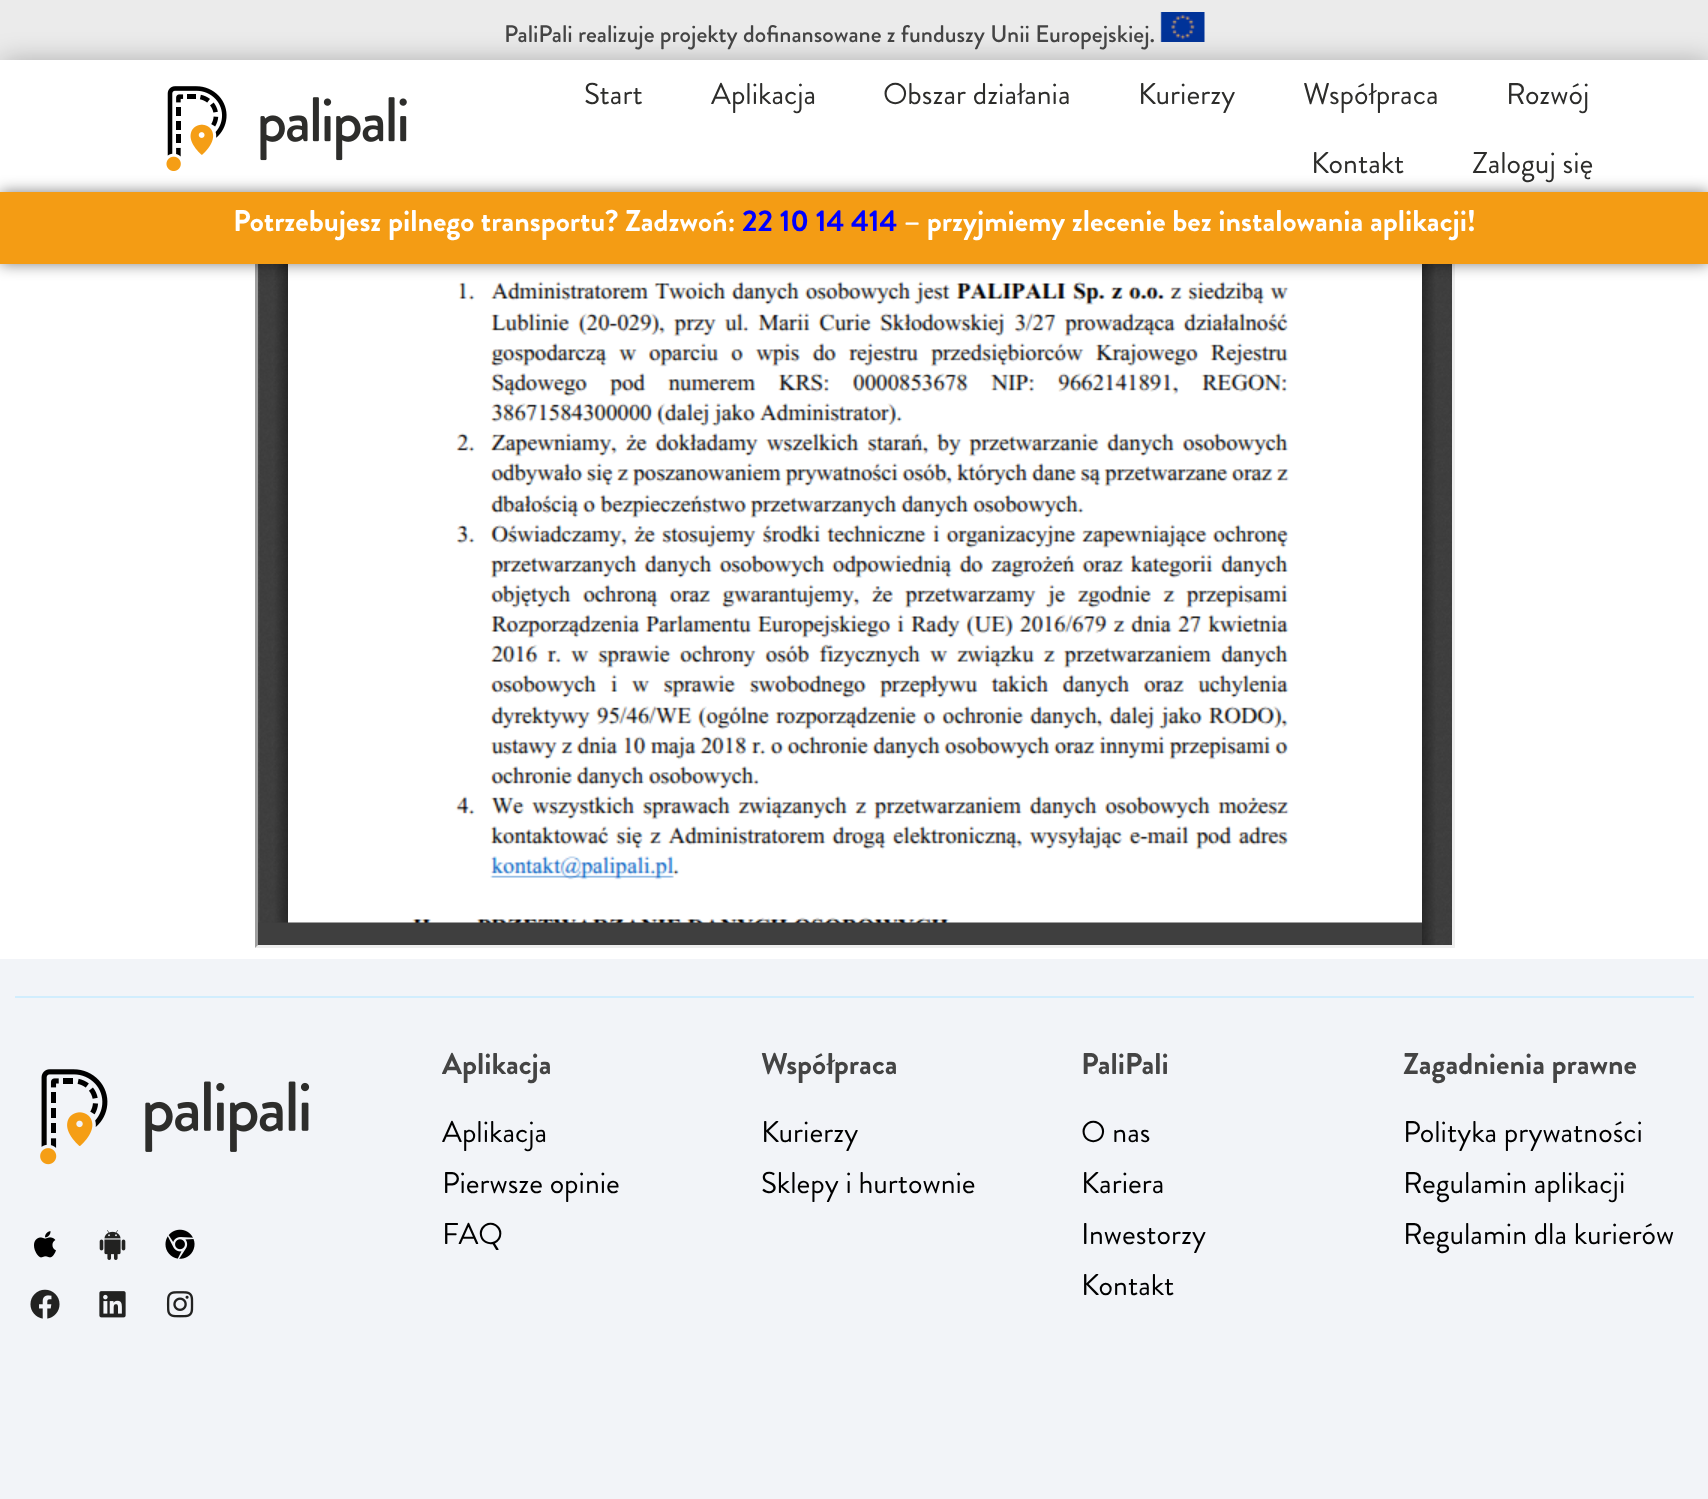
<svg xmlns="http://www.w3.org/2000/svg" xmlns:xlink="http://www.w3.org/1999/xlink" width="1708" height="1499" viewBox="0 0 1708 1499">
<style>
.cls-1{font:500 24px Brandon Grotesque;fill:#444444}
.cls-2{font:30px Brandon Grotesque;fill:#2d2d2b}
.cls-3{font:bold 30px Brandon Grotesque;fill:#ffffff}
.cls-4{font:bold 30px Brandon Grotesque;fill:#0000ff}
.cls-5{font:bold 30px Brandon Grotesque;fill:#444444}
.cls-6{font:30px Brandon Grotesque;fill:#000000}
</style>
<rect width="100%" height="100%" fill="#ffffff"/>
<path fill="#eeeeee" d="M1455-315V948L1452 945V-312Z"/>
<path fill="#eeeeee" d="M1455 948H255L258 945H1452Z"/>
<path fill="#9f9f9f" d="M255 948V-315L258-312V945Z"/>
<image xlink:href="image0.png" x="258" y="264" width="1194" height="681"/>
<rect fill="#ebebeb" x="0" y="0" width="1708" height="60"/>
<image xlink:href="image1.png" x="1160" y="12" width="45" height="30"/>
<rect fill="#000000" fill-opacity="0.29" filter="blur(14px)" x="2" y="62" width="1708" height="138"/>
<rect fill="#ffffff" x="0" y="60" width="1708" height="132"/>
<image xlink:href="image2.png" x="166" y="86" width="241" height="85"/>
<rect fill="#000000" fill-opacity="0.5" filter="blur(7.5px)" x="0" y="192" width="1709" height="72"/>
<rect fill="#f49c14" x="0" y="192" width="1708" height="72"/>
<rect fill="#f2f4f8" x="0" y="959" width="1708" height="540"/>
<rect fill="#d1edfd" x="15" y="996" width="1679" height="2"/>
<image xlink:href="image3.png" x="40" y="1069" width="270" height="96"/>
<image xlink:href="image4.png" x="34" y="1231" width="22" height="27"/>
<image xlink:href="image5.png" x="99" y="1230" width="27" height="30"/>
<image xlink:href="image6.png" x="165" y="1229" width="30" height="30"/>
<image xlink:href="image7.png" x="30" y="1289" width="30" height="30"/>
<image xlink:href="image8.png" x="99" y="1291" width="27" height="27"/>
<image xlink:href="image9.png" x="166" y="1291" width="28" height="27"/>
<text class="cls-1" x="504" y="42">PaliPali realizuje projekty dofinansowane z funduszy Unii Europejskiej.</text>
<text class="cls-2" x="584" y="104">Start</text>
<text class="cls-2" x="711" y="104">Aplikacja</text>
<text class="cls-2" x="883" y="104">Obszar działania</text>
<text class="cls-2" x="1138" y="104">Kurierzy</text>
<text class="cls-2" x="1303" y="104">Współpraca</text>
<text class="cls-2" x="1506" y="104">Rozwój</text>
<text class="cls-2" x="1311" y="173">Kontakt</text>
<text class="cls-2" x="1472" y="173">Zaloguj się</text>
<text class="cls-3" x="233" y="231">Potrzebujesz pilnego transportu? Zadzwoń:</text>
<text class="cls-4" x="742" y="231">22 10 14 414</text>
<text class="cls-3" x="904" y="231">– przyjmiemy zlecenie bez instalowania aplikacji!</text>
<text class="cls-5" x="442" y="1074">Aplikacja</text>
<text class="cls-6"><tspan x="442" y="1142">Aplikacja</tspan><tspan x="442" y="1193">Pierwsze opinie</tspan><tspan x="442" y="1244">FAQ</tspan></text>
<text class="cls-5" x="761" y="1074">Współpraca</text>
<text class="cls-6"><tspan x="761" y="1142">Kurierzy</tspan><tspan x="761" y="1193">Sklepy i hurtownie</tspan></text>
<text class="cls-5" x="1081" y="1074">PaliPali</text>
<text class="cls-6"><tspan x="1081" y="1142">O nas</tspan><tspan x="1081" y="1193">Kariera</tspan><tspan x="1081" y="1244">Inwestorzy</tspan><tspan x="1081" y="1295">Kontakt</tspan></text>
<text class="cls-5" x="1403" y="1074">Zagadnienia prawne</text>
<text class="cls-6"><tspan x="1403" y="1142">Polityka prywatności</tspan><tspan x="1403" y="1193">Regulamin aplikacji</tspan><tspan x="1403" y="1244">Regulamin dla kurierów</tspan></text>
</svg>
